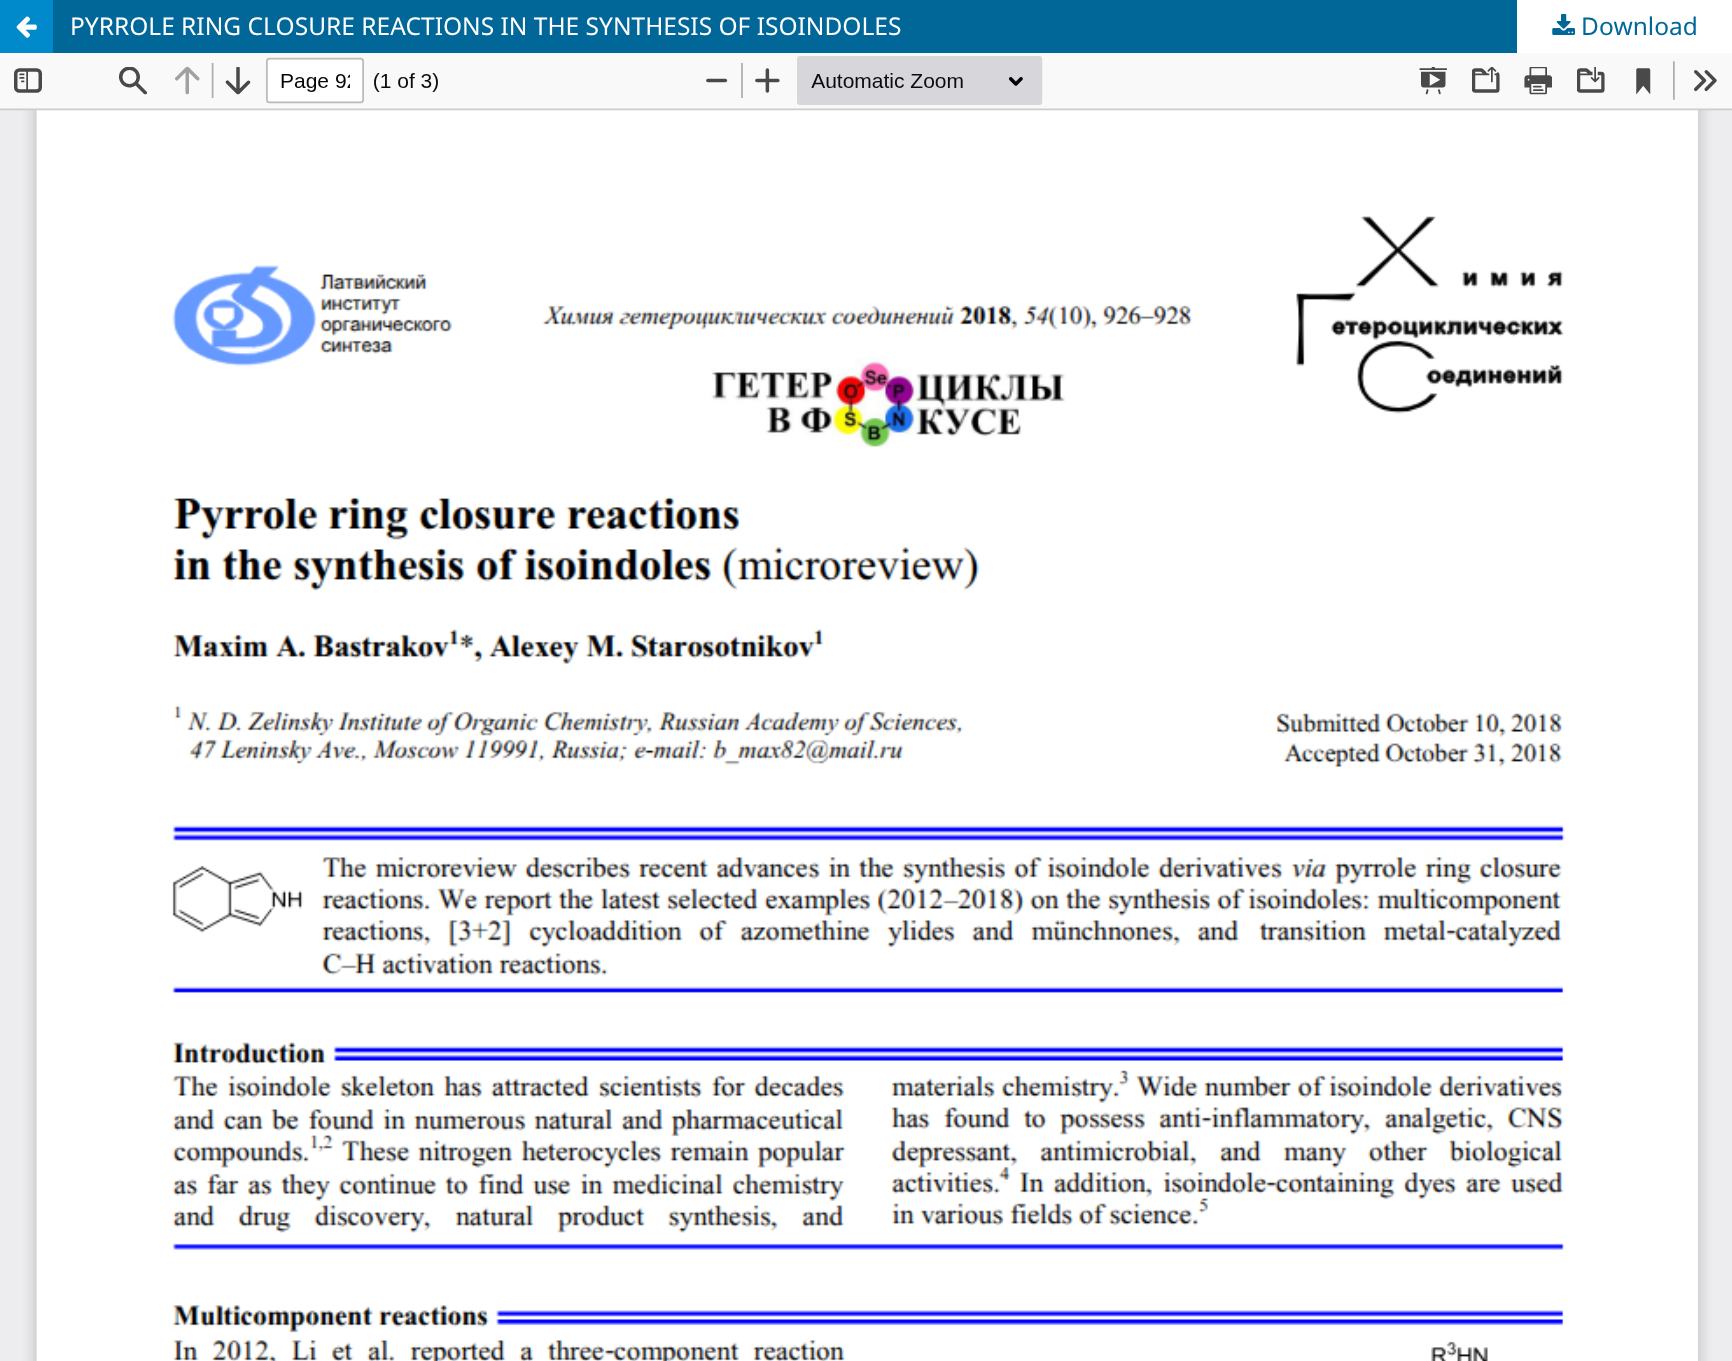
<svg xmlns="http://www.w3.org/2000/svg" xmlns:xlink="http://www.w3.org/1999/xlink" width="1732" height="1361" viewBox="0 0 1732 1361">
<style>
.cls-1{font:24.5px Noto Sans;fill:#ffffff}
.cls-2{font:24.5px Noto Sans;fill:#006798}
</style>
<rect width="100%" height="100%" fill="#ffffff"/>
<rect fill="#006798" x="53" y="0" width="1464" height="53"/>
<rect fill="#008acb" x="0" y="0" width="53" height="53"/>
<image xlink:href="image0.png" x="16" y="16" width="21" height="22"/>
<image xlink:href="image1.png" x="1552" y="14" width="23" height="21"/>
<image xlink:href="image2.png" x="0" y="53" width="1732" height="1308"/>
<text class="cls-1" x="70" y="35">PYRROLE RING CLOSURE REACTIONS IN THE SYNTHESIS OF ISOINDOLES</text>
<text class="cls-2" x="1581" y="35">Download</text>
</svg>
